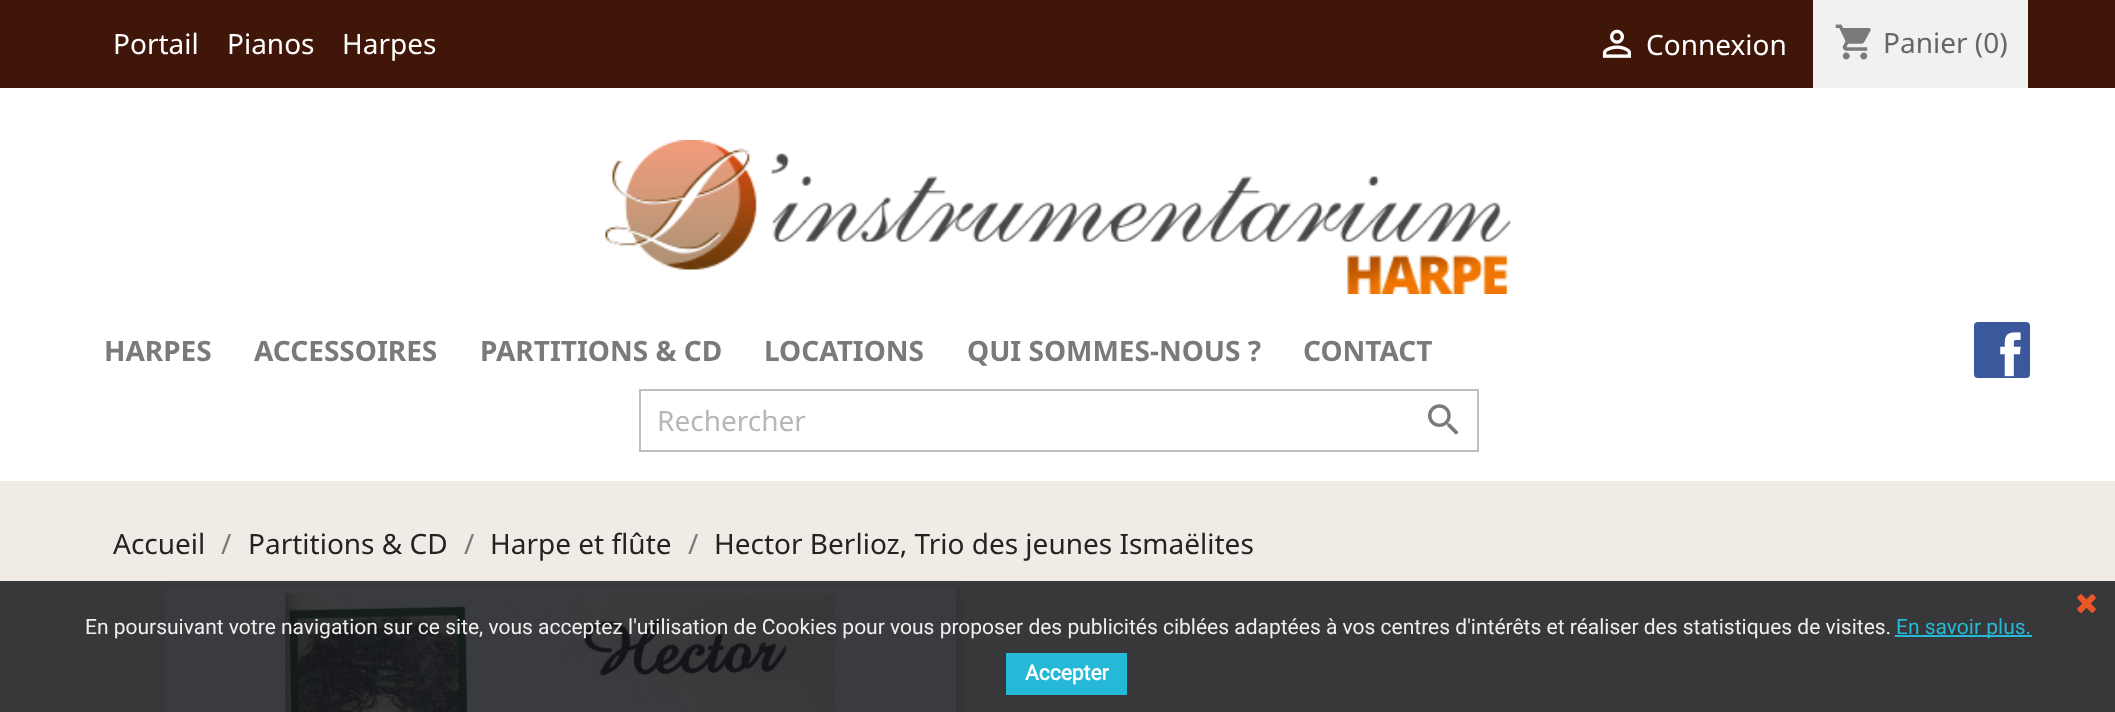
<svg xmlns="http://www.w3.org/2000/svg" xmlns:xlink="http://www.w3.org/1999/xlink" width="2115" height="712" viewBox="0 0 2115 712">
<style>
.cls-1{font:28px Noto Sans;fill:#ffffff}
.cls-2{font:28px Noto Sans;fill:#666666}
.cls-3{font:bold 28px Noto Sans;fill:#7a7a7a}
.cls-4{font:28px Noto Sans;fill:#b7b7b7}
.cls-5{font:28px Noto Sans;fill:#232323}
.cls-6{font:28px Noto Sans;fill:#7a7a7a}
.cls-7{font:21px Roboto;fill:#efefef}
.cls-8{font:21px Roboto;fill:#25b9d7}
.cls-9{font:bold 21px Roboto;fill:#ffffff}
</style>
<rect width="100%" height="100%" fill="#ffffff"/>
<rect fill="#401608" x="0" y="0" width="2115" height="88"/>
<image xlink:href="image0.png" x="1602" y="29" width="30" height="29"/>
<rect fill="#f1f1f1" x="1813" y="0" width="215" height="88"/>
<image xlink:href="image1.png" x="1835" y="24" width="36" height="36"/>
<image xlink:href="image2.png" x="605" y="140" width="906" height="154"/>
<rect fill="#3a589b" x="1974" y="322" width="56" height="56" rx="4"/>
<image xlink:href="image3.png" x="2000" y="332" width="21" height="45"/>
<rect fill="none" stroke="#bfbfbf" stroke-width="2" x="640" y="390" width="838" height="61"/>
<image xlink:href="image4.png" x="1428" y="404" width="31" height="31"/>
<rect fill="#f1ebe6" x="0" y="481" width="2115" height="231"/>
<rect fill="#000000" fill-opacity="0.2" filter="blur(7px)" x="168" y="592" width="791" height="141"/>
<image xlink:href="image5.png" x="164" y="588" width="673" height="124"/>
<rect fill="#ffffff" x="837" y="588" width="119" height="124"/>
<rect fill="#17191c" fill-opacity="0.85" x="0" y="581" width="2115" height="131"/>
<image xlink:href="image6.png" x="2077" y="594" width="19" height="19"/>
<rect fill="#25b9d7" x="1895" y="635" width="137" height="2"/>
<rect fill="#25b9d7" x="1006" y="653" width="121" height="42"/>
<text class="cls-1" x="113" y="54">Portail</text>
<text class="cls-1" x="227" y="54">Pianos</text>
<text class="cls-1" x="342" y="54">Harpes</text>
<text class="cls-1" x="1646" y="55">Connexion</text>
<text class="cls-2" x="1883" y="53">Panier (0)</text>
<text class="cls-3" x="104" y="361">HARPES</text>
<text class="cls-3" x="254" y="361">ACCESSOIRES</text>
<text class="cls-3" x="480" y="361">PARTITIONS &amp; CD</text>
<text class="cls-3" x="764" y="361">LOCATIONS</text>
<text class="cls-3" x="967" y="361">QUI SOMMES-NOUS ?</text>
<text class="cls-3" x="1303" y="361">CONTACT</text>
<text class="cls-4" x="657" y="431">Rechercher</text>
<text class="cls-5" x="113" y="554">Accueil</text>
<text class="cls-6" x="221" y="554">/</text>
<text class="cls-5" x="248" y="554">Partitions &amp; CD</text>
<text class="cls-6" x="464" y="554">/</text>
<text class="cls-5" x="490" y="554">Harpe et flûte</text>
<text class="cls-6" x="688" y="554">/</text>
<text class="cls-5" x="714" y="554">Hector Berlioz, Trio des jeunes Ismaëlites</text>
<text class="cls-7" x="85" y="634">En poursuivant votre navigation sur ce site, vous acceptez l'utilisation de Cookies pour vous proposer des publicités ciblées adaptées à vos centres d'intérêts et réaliser des statistiques de visites.</text>
<text class="cls-8" x="1896" y="634">En savoir plus.</text>
<text class="cls-9" x="1025" y="680">Accepter</text>
</svg>
